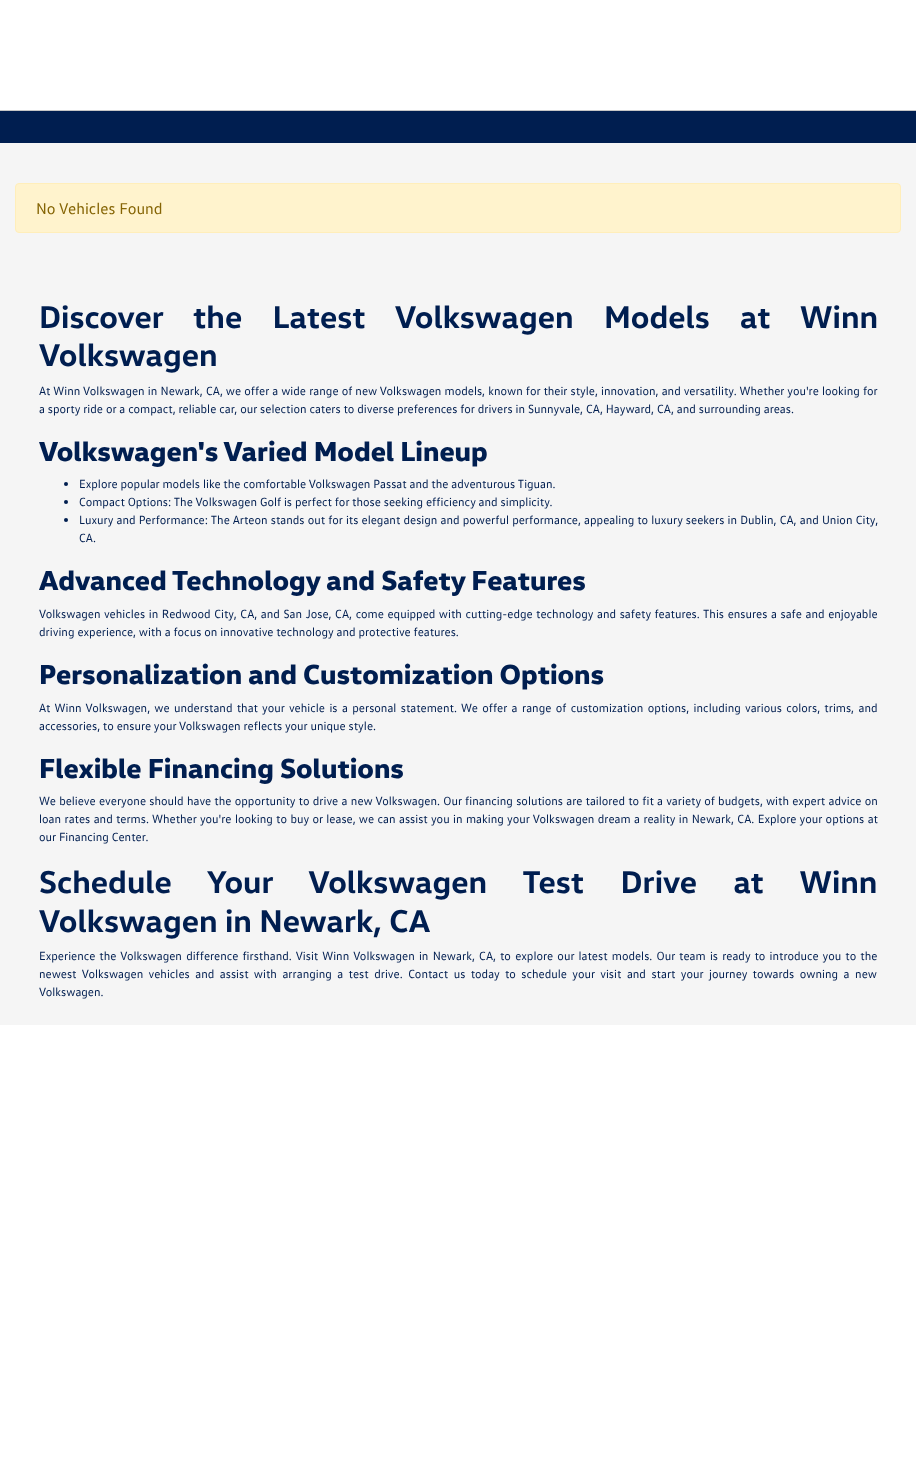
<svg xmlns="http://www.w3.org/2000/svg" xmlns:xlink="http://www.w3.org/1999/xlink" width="916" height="1457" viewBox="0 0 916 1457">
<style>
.cls-1{font:16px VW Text;fill:#856404}
.cls-2{font:bold 32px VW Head;fill:#001e50}
.cls-3{font:12px VW Text;fill:#001e50}
.cls-4{font:800 28px VW Head;fill:#001e50}
</style>
<rect width="100%" height="100%" fill="#ffffff"/>
<rect fill="#f5f5f5" x="0" y="143" width="916" height="882"/>
<rect fill="#001e50" x="0" y="111" width="916" height="32"/>
<rect fill="#c6c6c6" x="0" y="110" width="916" height="1"/>
<rect fill="#fff3cd" stroke="#ffeeba" x="15.5" y="183.5" width="885" height="49" rx="3.5"/>
<circle fill="#001e50" cx="66" cy="484" r="2"/>
<circle fill="#001e50" cx="66" cy="502" r="2"/>
<circle fill="#001e50" cx="66" cy="520" r="2"/>
<text class="cls-1" x="36" y="214">No Vehicles Found</text>
<text class="cls-2"><tspan x="39" y="328" word-spacing="23">Discover the Latest Volkswagen Models at Winn</tspan><tspan x="39" y="366">Volkswagen</tspan></text>
<text class="cls-3"><tspan x="39" y="395" word-spacing="0.25">At Winn Volkswagen in Newark, CA, we offer a wide range of new Volkswagen models, known for their style, innovation, and versatility. Whether you're looking for</tspan><tspan x="39" y="413">a sporty ride or a compact, reliable car, our selection caters to diverse preferences for drivers in Sunnyvale, CA, Hayward, CA, and surrounding areas.</tspan></text>
<text class="cls-4" x="39" y="461">Volkswagen's Varied Model Lineup</text>
<text class="cls-3"><tspan x="79" y="488">Explore popular models like the comfortable Volkswagen Passat and the adventurous Tiguan.</tspan><tspan x="79" y="506">Compact Options: The Volkswagen Golf is perfect for those seeking efficiency and simplicity.</tspan><tspan x="79" y="524" word-spacing="0.25">Luxury and Performance: The Arteon stands out for its elegant design and powerful performance, appealing to luxury seekers in Dublin, CA, and Union City,</tspan><tspan x="79" y="542">CA.</tspan></text>
<text class="cls-4" x="39" y="590">Advanced Technology and Safety Features</text>
<text class="cls-3"><tspan x="39" y="618" word-spacing="0.7">Volkswagen vehicles in Redwood City, CA, and San Jose, CA, come equipped with cutting-edge technology and safety features. This ensures a safe and enjoyable</tspan><tspan x="39" y="636">driving experience, with a focus on innovative technology and protective features.</tspan></text>
<text class="cls-4" x="39" y="684">Personalization and Customization Options</text>
<text class="cls-3"><tspan x="39" y="712" word-spacing="1.5">At Winn Volkswagen, we understand that your vehicle is a personal statement. We offer a range of customization options, including various colors, trims, and</tspan><tspan x="39" y="730">accessories, to ensure your Volkswagen reflects your unique style.</tspan></text>
<text class="cls-4" x="39" y="778">Flexible Financing Solutions</text>
<text class="cls-3"><tspan x="39" y="805" word-spacing="0.4">We believe everyone should have the opportunity to drive a new Volkswagen. Our financing solutions are tailored to fit a variety of budgets, with expert advice on</tspan><tspan x="39" y="823" word-spacing="0.5">loan rates and terms. Whether you're looking to buy or lease, we can assist you in making your Volkswagen dream a reality in Newark, CA. Explore your options at</tspan><tspan x="39" y="841">our Financing Center.</tspan></text>
<text class="cls-2"><tspan x="39" y="893" word-spacing="29">Schedule Your Volkswagen Test Drive at Winn</tspan><tspan x="39" y="932">Volkswagen in Newark, CA</tspan></text>
<text class="cls-3"><tspan x="39" y="960" word-spacing="1.3">Experience the Volkswagen difference firsthand. Visit Winn Volkswagen in Newark, CA, to explore our latest models. Our team is ready to introduce you to the</tspan><tspan x="39" y="978" word-spacing="2.6">newest Volkswagen vehicles and assist with arranging a test drive. Contact us today to schedule your visit and start your journey towards owning a new</tspan><tspan x="39" y="996">Volkswagen.</tspan></text>
</svg>
